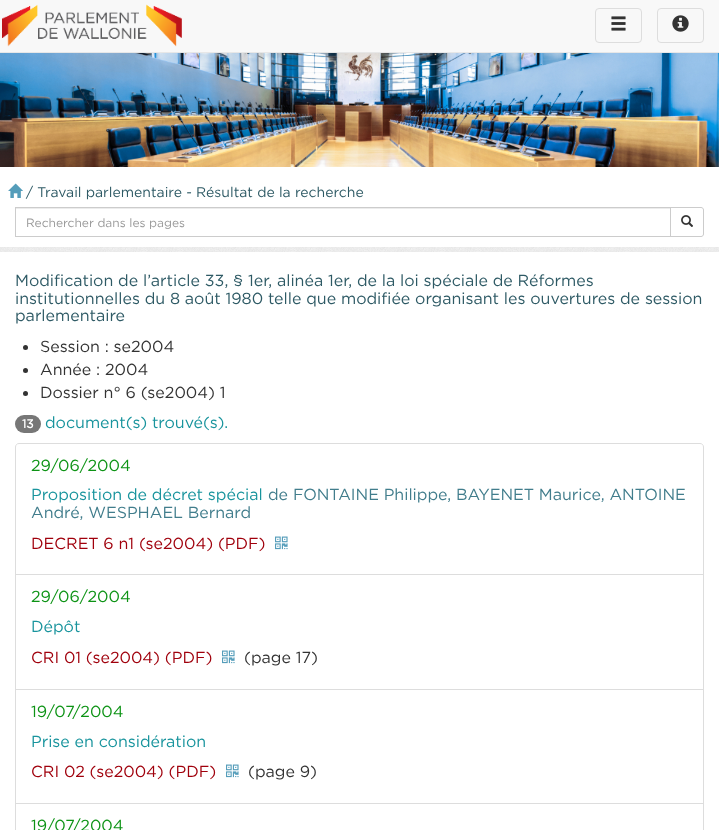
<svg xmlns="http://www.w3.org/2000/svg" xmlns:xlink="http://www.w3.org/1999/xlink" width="719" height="830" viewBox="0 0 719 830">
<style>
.cls-1{font:14px Gotham;fill:#2e5a65}
.cls-2{font:12px Gotham;fill:#999999}
.cls-3{font:16px Gotham;fill:#2e5a65}
.cls-4{font:16px Gotham;fill:#333333}
.cls-5{font:bold 12px Gotham;fill:#ffffff}
.cls-6{font:16px Gotham;fill:#18949d}
.cls-7{font:16px Gotham;fill:#0d9315}
.cls-8{font:16px Gotham;fill:#417d8c}
.cls-9{font:16px Gotham;fill:#a0000c}
</style>
<rect width="100%" height="100%" fill="#ffffff"/>
<image xlink:href="image0.png" x="0" y="247" width="719" height="5"/>
<rect fill="#f8f8f8" x="0" y="0" width="719" height="52"/>
<rect fill="#e7e7e7" x="0" y="52" width="719" height="1"/>
<image xlink:href="image1.png" x="2" y="4" width="180" height="43"/>
<rect fill="none" stroke="#dddddd" x="595.5" y="8.5" width="46" height="34" rx="3.5"/>
<image xlink:href="image2.png" x="611" y="16" width="15" height="15"/>
<rect fill="none" stroke="#dddddd" x="657.5" y="8.5" width="46" height="34" rx="3.5"/>
<image xlink:href="image3.png" x="672" y="15" width="17" height="17"/>
<image xlink:href="image4.png" x="0" y="53" width="719" height="114"/>
<image xlink:href="image5.png" x="8" y="183" width="15" height="15"/>
<rect fill="#ececec" x="16" y="208" width="654" height="1"/>
<path fill="none" stroke="#cccccc" d="M670.5 207.5H701C702.5 207.5 703.5 208.5 703.5 210V234C703.5 235.5 702.5 236.5 701 236.5H670.5Z"/>
<rect fill="none" stroke="#cccccc" x="15.5" y="207.5" width="655" height="29"/>
<image xlink:href="image6.png" x="681" y="215" width="12" height="12"/>
<circle fill="#333333" cx="25.5" cy="347.5" r="2.5"/>
<circle fill="#333333" cx="25.5" cy="370.5" r="2.5"/>
<circle fill="#333333" cx="25.5" cy="393.5" r="2.5"/>
<rect fill="#777777" x="15" y="415" width="26" height="18" rx="9"/>
<path fill="none" stroke="#dddddd" d="M19 443.5H700C702 443.5 703.5 445 703.5 447V574.5H15.5V447C15.5 445 17 443.5 19 443.5Z"/>
<image xlink:href="image7.png" x="275" y="536" width="13" height="14"/>
<rect fill="none" stroke="#dddddd" x="15.5" y="574.5" width="688" height="115"/>
<image xlink:href="image7.png" x="222" y="650" width="13" height="14"/>
<rect fill="none" stroke="#dddddd" x="15.5" y="689.5" width="688" height="114"/>
<image xlink:href="image7.png" x="226" y="764" width="13" height="14"/>
<rect fill="none" stroke="#dddddd" x="15.5" y="803.5" width="688" height="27"/>
<text class="cls-1" x="26" y="197">/ Travail parlementaire - Résultat de la recherche</text>
<text class="cls-2" x="26" y="227">Rechercher dans les pages</text>
<text class="cls-3"><tspan x="15" y="286">Modification de l’article 33, § 1er, alinéa 1er, de la loi spéciale de Réformes</tspan><tspan x="15" y="304">institutionnelles du 8 août 1980 telle que modifiée organisant les ouvertures de session</tspan><tspan x="15" y="321">parlementaire</tspan></text>
<text class="cls-4"><tspan x="40" y="352">Session : se2004</tspan><tspan x="40" y="375">Année : 2004</tspan><tspan x="40" y="398">Dossier n° 6 (se2004) 1</tspan></text>
<text class="cls-5" x="22" y="428">13</text>
<text class="cls-6" x="45" y="428">document(s) trouvé(s).</text>
<text class="cls-7" x="31" y="471">29/06/2004</text>
<text class="cls-6" x="31" y="500">Proposition de décret spécial</text>
<text class="cls-8" x="268" y="500">de FONTAINE Philippe, BAYENET Maurice, ANTOINE</text>
<text class="cls-8" x="31" y="518">André, WESPHAEL Bernard</text>
<text class="cls-9" x="31" y="549">DECRET 6 n1 (se2004) (PDF)</text>
<text class="cls-7" x="31" y="602">29/06/2004</text>
<text class="cls-6" x="31" y="632">Dépôt</text>
<text class="cls-9" x="31" y="663">CRI 01 (se2004) (PDF)</text>
<text class="cls-4" x="244" y="663">(page 17)</text>
<text class="cls-7" x="31" y="717">19/07/2004</text>
<text class="cls-6" x="31" y="747">Prise en considération</text>
<text class="cls-9" x="31" y="777">CRI 02 (se2004) (PDF)</text>
<text class="cls-4" x="248" y="777">(page 9)</text>
<text class="cls-7" x="31" y="831">19/07/2004</text>
</svg>
